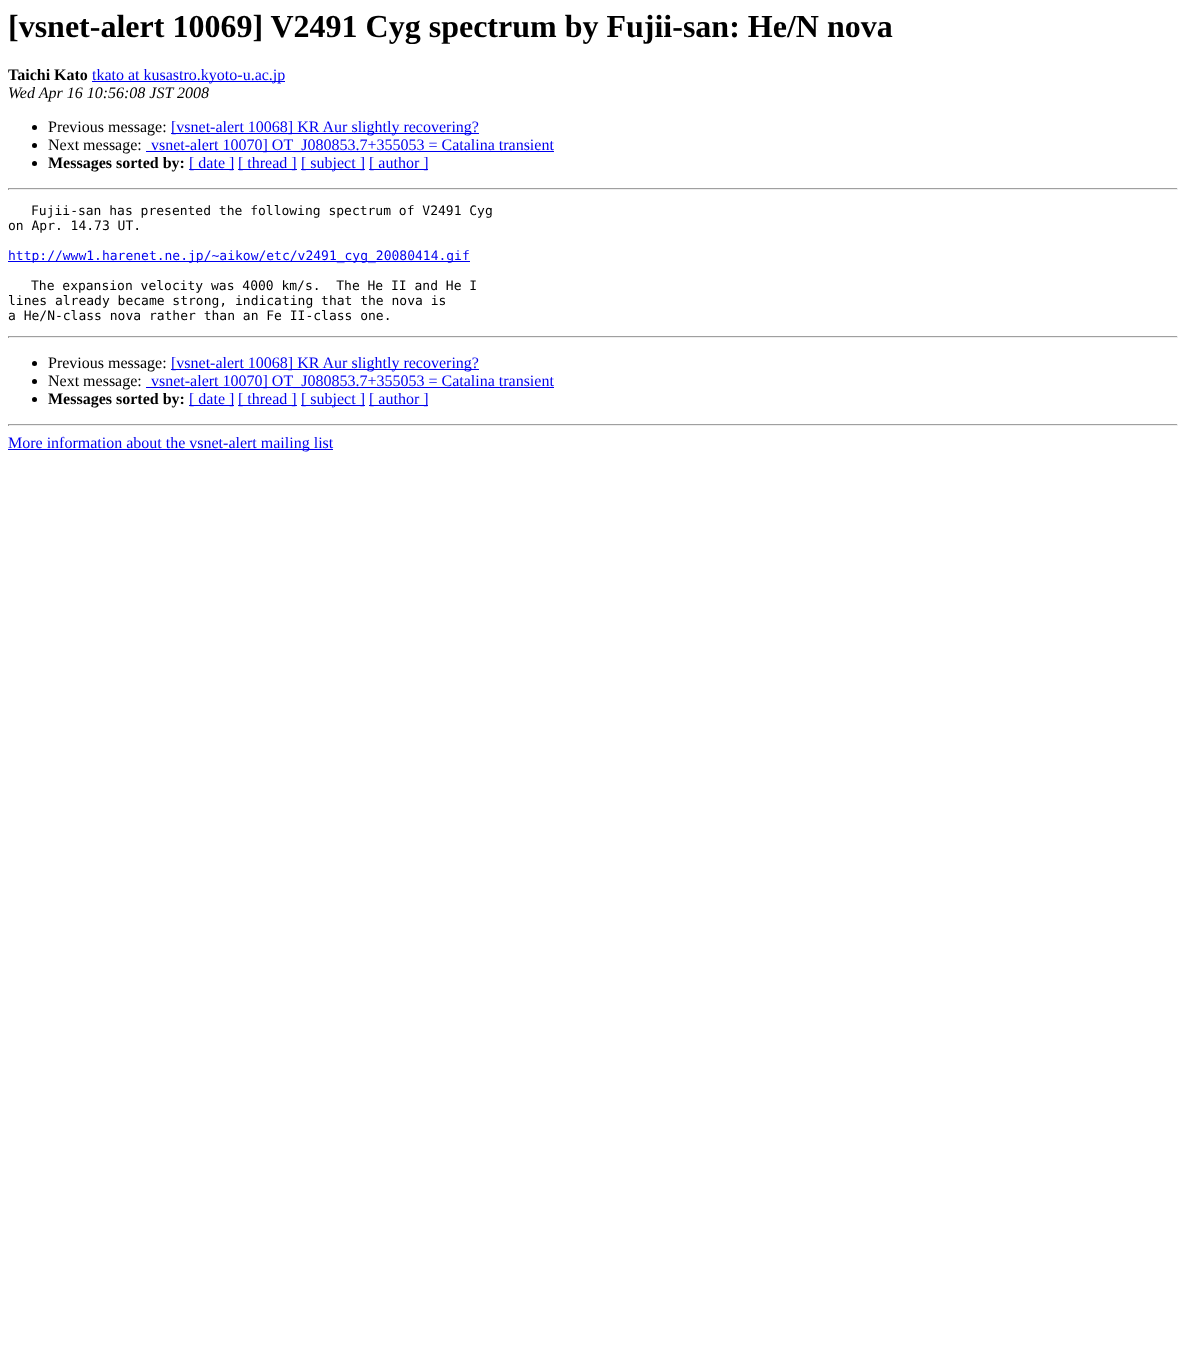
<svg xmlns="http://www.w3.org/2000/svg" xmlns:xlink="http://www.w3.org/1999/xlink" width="1186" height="1368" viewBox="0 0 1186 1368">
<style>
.cls-1{font:bold 32px Liberation Serif;fill:#000000}
.cls-2{font:bold 16px Liberation Serif;fill:#000000}
.cls-3{font:16px Liberation Serif;fill:#0000ee}
.cls-4{font:italic 16px Liberation Serif;fill:#000000}
.cls-5{font:16px Liberation Serif;fill:#000000}
.cls-6{font:13px DejaVu Sans Mono;fill:#000000}
.cls-7{font:13px DejaVu Sans Mono;fill:#0000ee}
</style>
<rect width="100%" height="100%" fill="#ffffff"/>
<rect fill="#0000ee" x="92" y="81" width="193" height="1"/>
<circle fill="#000000" cx="34.5" cy="127.5" r="2.5"/>
<rect fill="#0000ee" x="171" y="133" width="308" height="1"/>
<circle fill="#000000" cx="34.5" cy="145.5" r="2.5"/>
<rect fill="#0000ee" x="146" y="151" width="408" height="1"/>
<circle fill="#000000" cx="34.5" cy="163.5" r="2.5"/>
<rect fill="#0000ee" x="189" y="169" width="45" height="1"/>
<rect fill="#0000ee" x="238" y="169" width="59" height="1"/>
<rect fill="#0000ee" x="301" y="169" width="64" height="1"/>
<rect fill="#0000ee" x="369" y="169" width="59" height="1"/>
<rect fill="#9f9f9f" x="8" y="188" width="1170" height="1"/>
<rect fill="#eeeeee" x="1177" y="188" width="1" height="2"/>
<rect fill="#eeeeee" x="8" y="189" width="1170" height="1"/>
<rect fill="#9f9f9f" x="8" y="188" width="1" height="2"/>
<rect fill="#0000ee" x="8" y="261" width="462" height="1"/>
<rect fill="#9f9f9f" x="8" y="336" width="1170" height="1"/>
<rect fill="#eeeeee" x="1177" y="336" width="1" height="2"/>
<rect fill="#eeeeee" x="8" y="337" width="1170" height="1"/>
<rect fill="#9f9f9f" x="8" y="336" width="1" height="2"/>
<circle fill="#000000" cx="34.5" cy="363.5" r="2.5"/>
<rect fill="#0000ee" x="171" y="369" width="308" height="1"/>
<circle fill="#000000" cx="34.5" cy="381.5" r="2.5"/>
<rect fill="#0000ee" x="146" y="387" width="408" height="1"/>
<circle fill="#000000" cx="34.5" cy="399.5" r="2.5"/>
<rect fill="#0000ee" x="189" y="405" width="45" height="1"/>
<rect fill="#0000ee" x="238" y="405" width="59" height="1"/>
<rect fill="#0000ee" x="301" y="405" width="64" height="1"/>
<rect fill="#0000ee" x="369" y="405" width="59" height="1"/>
<rect fill="#9f9f9f" x="8" y="424" width="1170" height="1"/>
<rect fill="#eeeeee" x="1177" y="424" width="1" height="2"/>
<rect fill="#eeeeee" x="8" y="425" width="1170" height="1"/>
<rect fill="#9f9f9f" x="8" y="424" width="1" height="2"/>
<rect fill="#0000ee" x="8" y="449" width="325" height="1"/>
<text class="cls-1" x="8" y="37">[vsnet-alert 10069] V2491 Cyg spectrum by Fujii-san: He/N nova</text>
<text class="cls-2" x="8" y="80">Taichi Kato</text>
<text class="cls-3" x="92" y="80">tkato at kusastro.kyoto-u.ac.jp</text>
<text class="cls-4" x="8" y="98">Wed Apr 16 10:56:08 JST 2008</text>
<text class="cls-5" x="48" y="132">Previous message:</text>
<text class="cls-3" x="171" y="132">[vsnet-alert 10068] KR Aur slightly recovering?</text>
<text class="cls-5" x="48" y="150">Next message:</text>
<text class="cls-3" x="151" y="150">vsnet-alert 10070] OT_J080853.7+355053 = Catalina transient</text>
<text class="cls-2" x="48" y="168">Messages sorted by:</text>
<text class="cls-3" x="189" y="168">[ date ]</text>
<text class="cls-3" x="238" y="168">[ thread ]</text>
<text class="cls-3" x="301" y="168">[ subject ]</text>
<text class="cls-3" x="369" y="168">[ author ]</text>
<text class="cls-6" x="31" y="215">Fujii-san has presented the following spectrum of V2491 Cyg</text>
<text class="cls-6" x="8" y="230">on Apr. 14.73 UT.</text>
<text class="cls-7" x="8" y="260">http://www1.harenet.ne.jp/~aikow/etc/v2491_cyg_20080414.gif</text>
<text class="cls-6" xml:space="preserve" x="31" y="290">The expansion velocity was 4000 km/s.  The He II and He I</text>
<text class="cls-6"><tspan x="8" y="305">lines already became strong, indicating that the nova is</tspan><tspan x="8" y="320">a He/N-class nova rather than an Fe II-class one.</tspan></text>
<text class="cls-5" x="48" y="368">Previous message:</text>
<text class="cls-3" x="171" y="368">[vsnet-alert 10068] KR Aur slightly recovering?</text>
<text class="cls-5" x="48" y="386">Next message:</text>
<text class="cls-3" x="151" y="386">vsnet-alert 10070] OT_J080853.7+355053 = Catalina transient</text>
<text class="cls-2" x="48" y="404">Messages sorted by:</text>
<text class="cls-3" x="189" y="404">[ date ]</text>
<text class="cls-3" x="238" y="404">[ thread ]</text>
<text class="cls-3" x="301" y="404">[ subject ]</text>
<text class="cls-3" x="369" y="404">[ author ]</text>
<text class="cls-3" x="8" y="448">More information about the vsnet-alert mailing list</text>
</svg>
